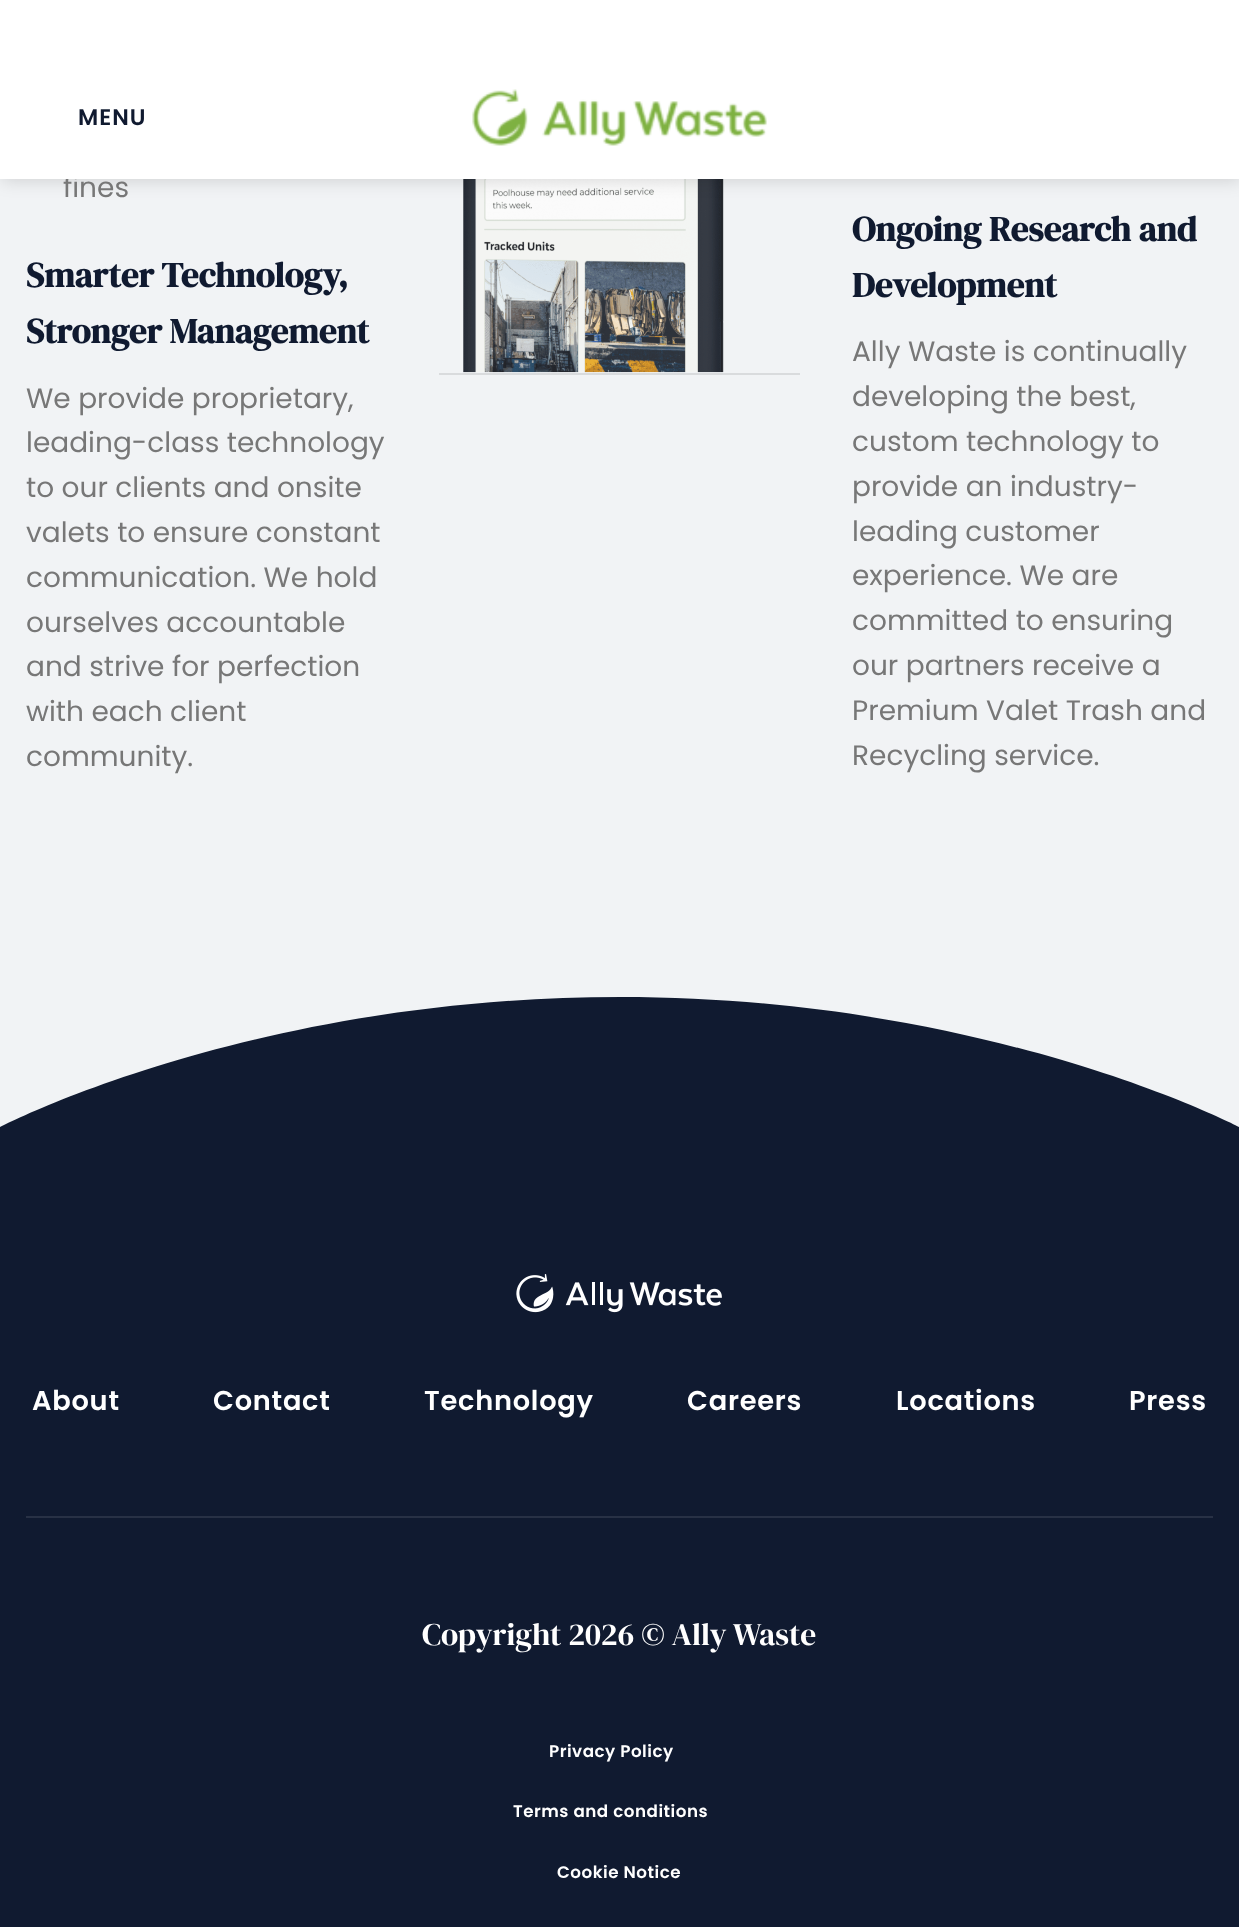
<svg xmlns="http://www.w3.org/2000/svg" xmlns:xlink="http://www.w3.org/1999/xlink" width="1239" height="1927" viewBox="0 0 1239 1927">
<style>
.cls-1{font:28px Poppins;fill:#777777}
.cls-2{font:600 22.5px Poppins;letter-spacing:1px;fill:#101a30}
.cls-3{font:bold 35px DM Serif Display;fill:#101a30}
.cls-4{font:600 27.25px Poppins;letter-spacing:0.75px;fill:#ffffff}
.cls-5{font:31.5px DM Serif Display;fill:#ffffff}
.cls-6{font:600 16.75px Poppins;letter-spacing:0.5px;fill:#ffffff}
</style>
<defs>
<clipPath id="clip1"><rect x="0" y="865" width="1239" height="262"/></clipPath>
</defs>
<rect width="100%" height="100%" fill="#f1f3f5"/>
<image xlink:href="image1.png" x="463" y="179" width="261" height="194"/>
<rect fill="#000000" fill-opacity="0.15" filter="blur(9px)" x="2" y="2" width="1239" height="178"/>
<rect fill="#d9dbdd" x="439" y="373" width="361" height="2"/>
<rect fill="#101a30" x="0" y="997" width="1239" height="930"/>
<g clip-path="url(#clip1)">
<path fill="#f1f3f5" d="M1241 1128C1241 1128 992 997 620 997C247 997-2 1128-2 1128V863H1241Z"/>
</g>
<image xlink:href="image2.png" x="516" y="1274" width="206" height="39"/>
<rect fill="#283145" x="26" y="1516" width="1187" height="2"/>
<text class="cls-1" x="63" y="197">fines</text>
<rect fill="#ffffff" x="0" y="0" width="1239" height="179"/>
<text class="cls-2" x="78" y="125">MENU</text>
<image xlink:href="image0.png" x="472" y="89" width="295" height="57"/>
<text class="cls-3"><tspan x="26" y="287">Smarter Technology,</tspan><tspan x="26" y="343">Stronger Management</tspan></text>
<text class="cls-1"><tspan x="26" y="408">We provide proprietary,</tspan><tspan x="26" y="452">leading-class technology</tspan><tspan x="26" y="497">to our clients and onsite</tspan><tspan x="26" y="542">valets to ensure constant</tspan><tspan x="26" y="587">communication. We hold</tspan><tspan x="26" y="632">ourselves accountable</tspan><tspan x="26" y="676">and strive for perfection</tspan><tspan x="26" y="721">with each client</tspan><tspan x="26" y="766">community.</tspan></text>
<text class="cls-3"><tspan x="852" y="241">Ongoing Research and</tspan><tspan x="852" y="297">Development</tspan></text>
<text class="cls-1"><tspan x="852" y="361">Ally Waste is continually</tspan><tspan x="852" y="406">developing the best,</tspan><tspan x="852" y="451">custom technology to</tspan><tspan x="852" y="496">provide an industry-</tspan><tspan x="852" y="541">leading customer</tspan><tspan x="852" y="585">experience. We are</tspan><tspan x="852" y="630">committed to ensuring</tspan><tspan x="852" y="675">our partners receive a</tspan><tspan x="852" y="720">Premium Valet Trash and</tspan><tspan x="852" y="765">Recycling service.</tspan></text>
<text class="cls-4" x="32" y="1410">About</text>
<text class="cls-4" x="213" y="1410">Contact</text>
<text class="cls-4" x="424" y="1410">Technology</text>
<text class="cls-4" x="687" y="1410">Careers</text>
<text class="cls-4" x="896" y="1410">Locations</text>
<text class="cls-4" x="1129" y="1410">Press</text>
<text class="cls-5" x="422" y="1645">Copyright 2026 © Ally Waste</text>
<text class="cls-6" x="549" y="1757">Privacy Policy</text>
<text class="cls-6" x="513" y="1817">Terms and conditions</text>
<text class="cls-6" x="557" y="1878">Cookie Notice</text>
</svg>
